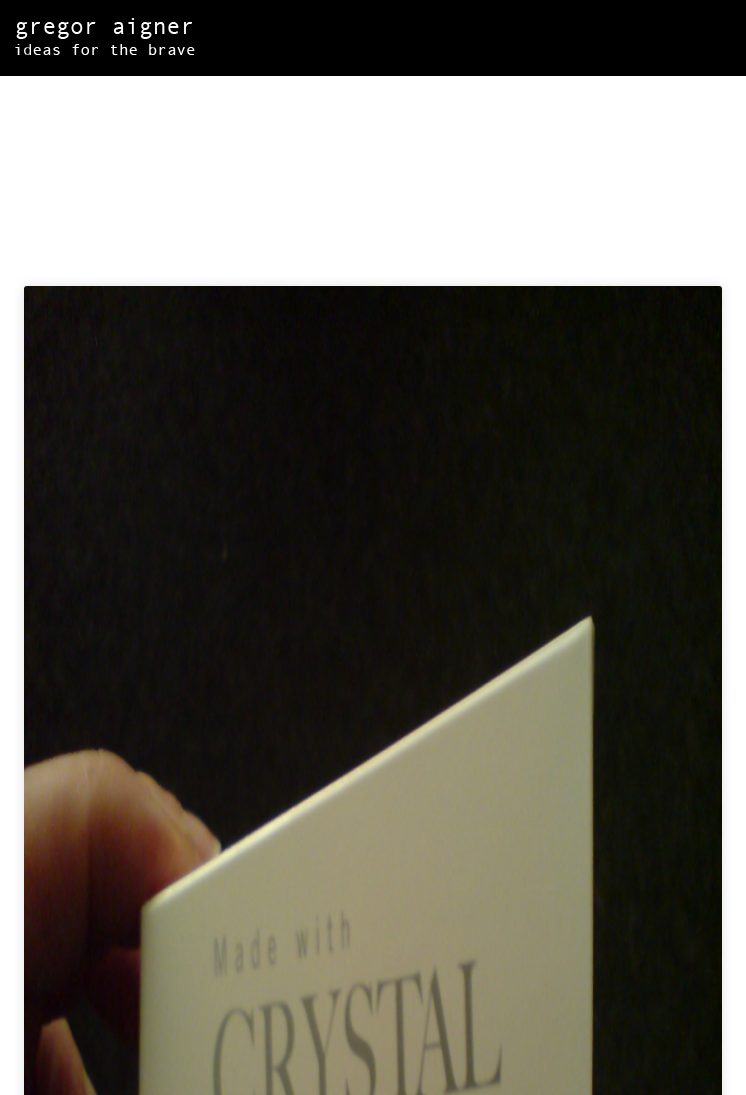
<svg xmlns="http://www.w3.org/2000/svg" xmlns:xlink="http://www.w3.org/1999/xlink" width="746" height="1095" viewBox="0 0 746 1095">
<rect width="100%" height="100%" fill="#ffffff"/>
<rect fill="#000000" x="0" y="0" width="746" height="76"/>
<image xlink:href="image0.png" x="15" y="18" width="180" height="37"/>
<rect fill="#000000" fill-opacity="0.12" filter="blur(6px)" x="24" y="286" width="698" height="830" rx="3"/>
<image xlink:href="image1.png" x="24" y="286" width="698" height="809"/>
</svg>
